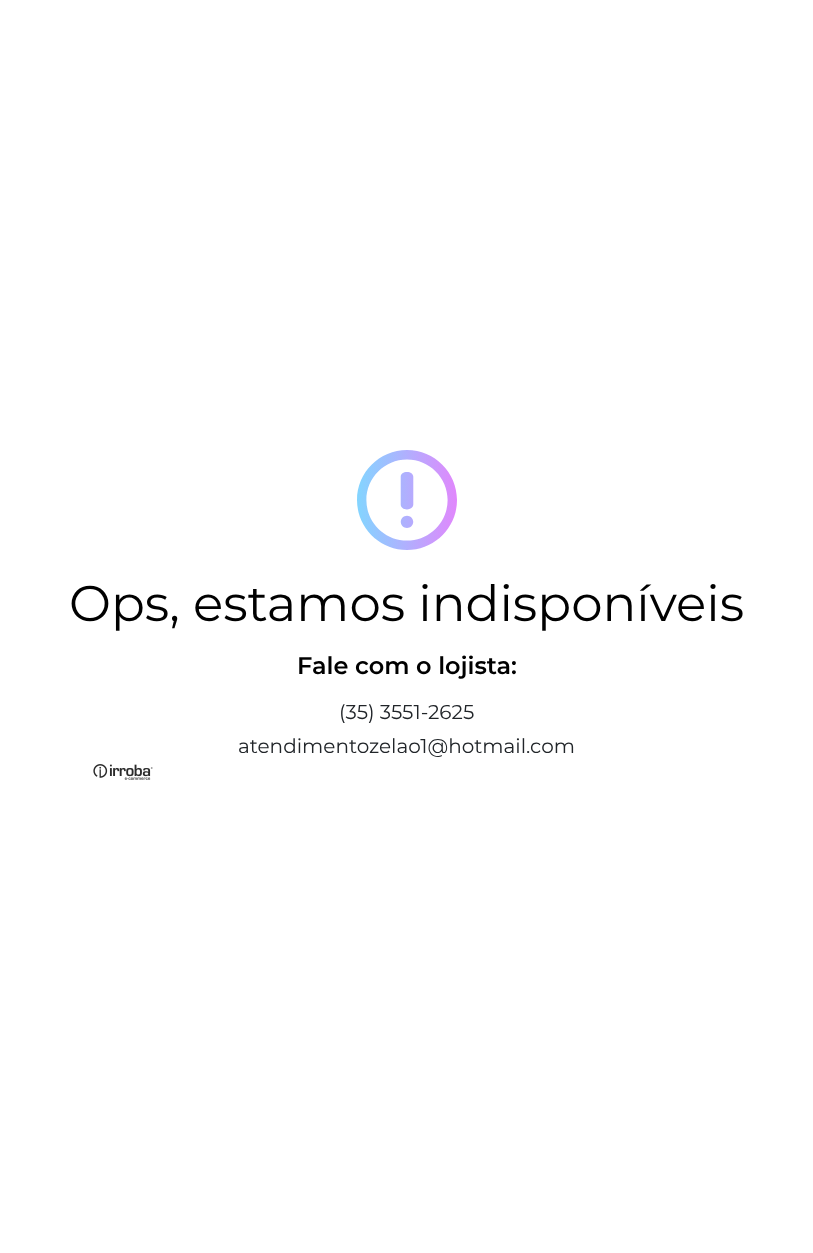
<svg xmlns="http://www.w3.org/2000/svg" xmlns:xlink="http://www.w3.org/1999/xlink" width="813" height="1253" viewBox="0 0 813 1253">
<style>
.cls-1{font:50px Montserrat;fill:#000000}
.cls-2{font:600 24px Montserrat;fill:#000000}
.cls-3{font:20px Montserrat;fill:#212529}
</style>
<rect width="100%" height="100%" fill="#ffffff"/>
<image xlink:href="image0.png" x="357" y="450" width="100" height="100"/>
<image xlink:href="image1.png" x="93" y="764" width="60" height="16"/>
<text class="cls-1" x="69" y="621">Ops, estamos indisponíveis</text>
<text class="cls-2" x="297" y="674">Fale com o lojista:</text>
<text class="cls-3" x="339" y="719">(35) 3551-2625</text>
<text class="cls-3" x="238" y="753">atendimentozelao1@hotmail.com</text>
</svg>
